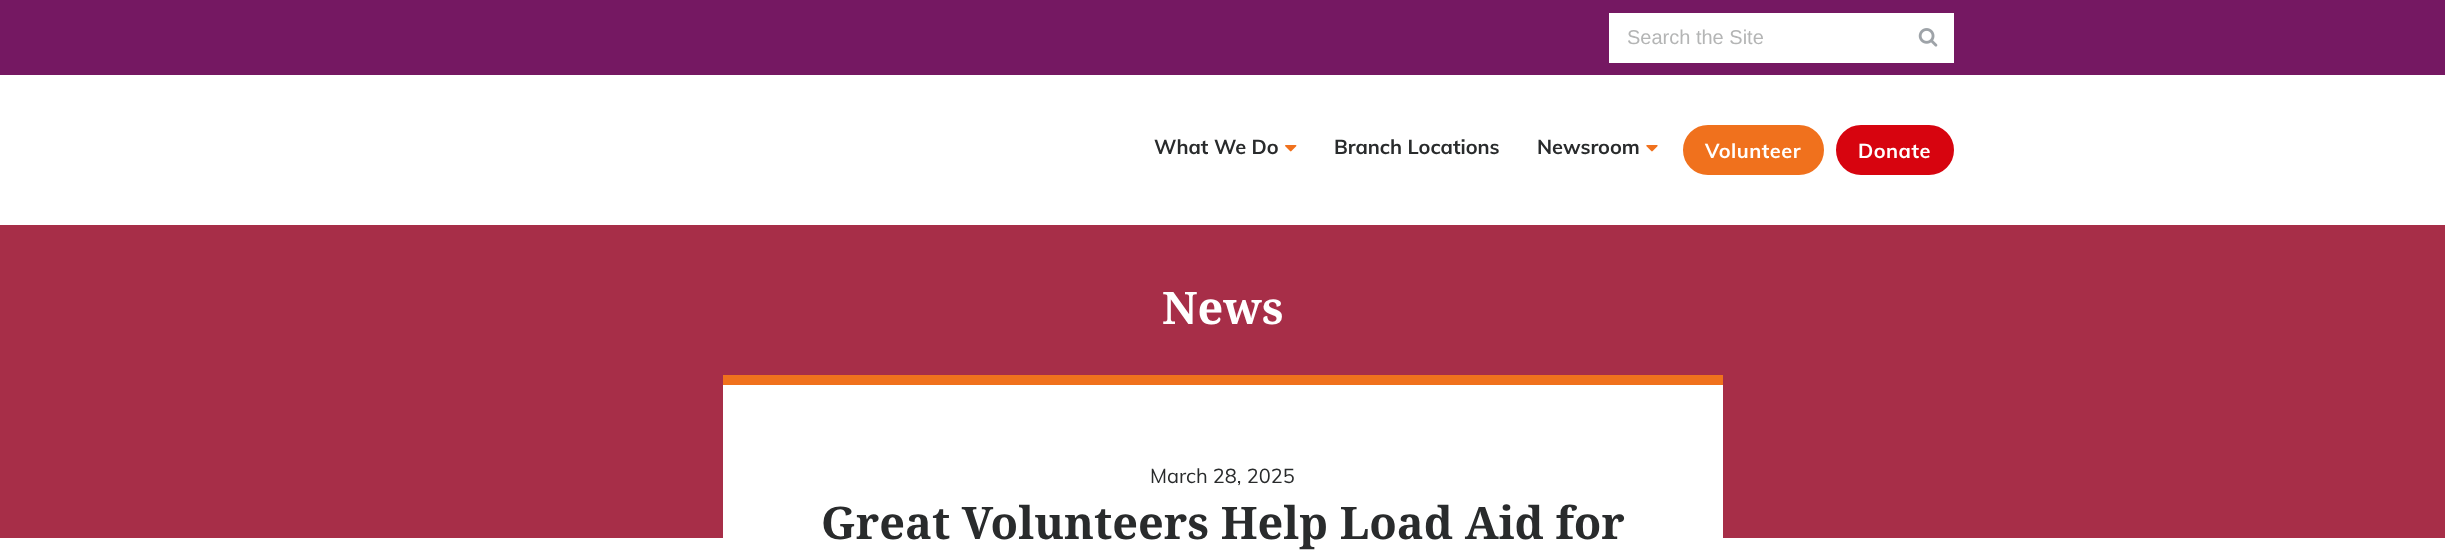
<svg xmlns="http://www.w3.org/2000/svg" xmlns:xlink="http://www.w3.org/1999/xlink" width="2445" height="552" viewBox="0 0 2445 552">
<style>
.cls-1{font:20px Liberation Sans;fill:#b4b5b5}
.cls-2{font:bold 20px Muli;fill:#292b2c}
.cls-3{font:bold 20px Muli;letter-spacing:0.5px;fill:#ffffff}
.cls-4{font:bold 45px Noto Serif;fill:#ffffff}
.cls-5{font:20px Muli;fill:#292b2c}
.cls-6{font:bold 45px Noto Serif;fill:#292b2c}
</style>
<rect width="100%" height="100%" fill="#ffffff"/>
<rect fill="#751862" x="0" y="0" width="2445" height="75"/>
<rect fill="#ffffff" stroke="#ffffff" stroke-width="3" x="1610.5" y="14.5" width="291" height="47"/>
<rect fill="#ffffff" x="1903" y="13" width="51" height="50"/>
<image xlink:href="image0.png" x="1918" y="28" width="20" height="19"/>
<image xlink:href="image1.png" x="1285" y="145" width="12" height="7"/>
<image xlink:href="image2.png" x="1646" y="145" width="12" height="7"/>
<rect fill="#f0711d" stroke="#f0711d" stroke-width="3" x="1684.5" y="126.5" width="138" height="47" rx="23.5"/>
<rect fill="#d7040f" stroke="#d7040f" stroke-width="3" x="1837.5" y="126.5" width="115" height="47" rx="23.5"/>
<rect fill="#a72e48" x="0" y="225" width="2445" height="313"/>
<rect fill="#ffffff" x="723" y="385" width="1000" height="153"/>
<rect fill="#f0711d" x="723" y="375" width="1000" height="10"/>
<text class="cls-1" x="1627" y="44">Search the Site</text>
<text class="cls-2" x="1154" y="154">What We Do</text>
<text class="cls-2" x="1334" y="154">Branch Locations</text>
<text class="cls-2" x="1537" y="154">Newsroom</text>
<text class="cls-3" x="1705" y="158">Volunteer</text>
<text class="cls-3" x="1858" y="158">Donate</text>
<text class="cls-4" x="1162" y="324">News</text>
<text class="cls-5" x="1150" y="483">March 28, 2025</text>
<text class="cls-6" x="821" y="539">Great Volunteers Help Load Aid for</text>
</svg>
